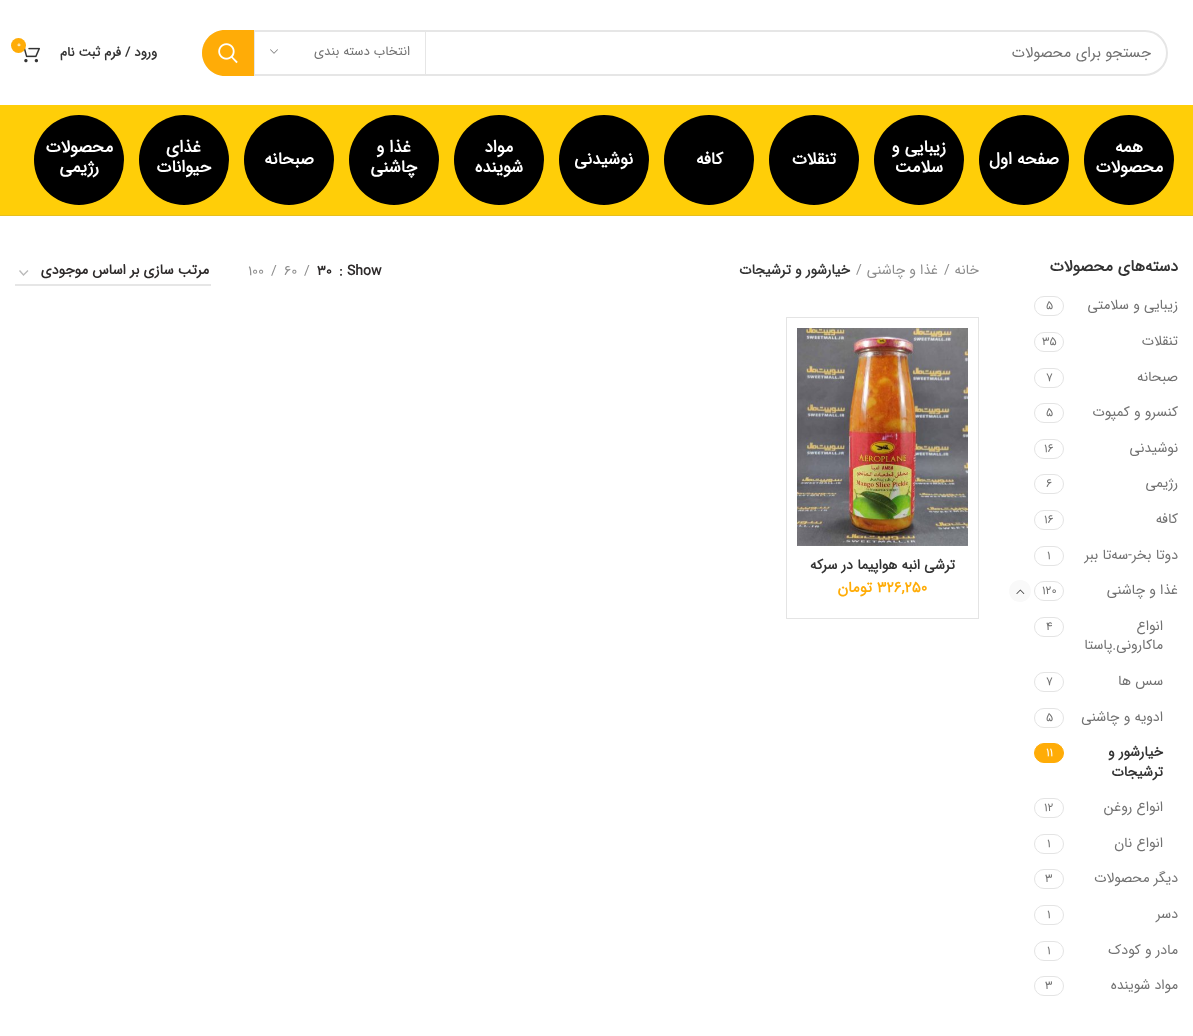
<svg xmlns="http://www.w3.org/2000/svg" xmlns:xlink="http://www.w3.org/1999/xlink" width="1193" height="1036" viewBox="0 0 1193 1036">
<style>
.cls-1{font:15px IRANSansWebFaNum;direction:rtl;fill:#727272}
.cls-2{font:13px IRANSansWebFaNum;direction:rtl;fill:#727272}
.cls-3{font:9px IRANSansWebFaNum;fill:#ffffff}
.cls-4{font:bold 13px IRANSansWebFaNum;direction:rtl;fill:#333333}
.cls-5{font:bold 17px IRANSansWebFaNum;direction:rtl;fill:#ffffff}
.cls-6{font:bold 16px IRANSansWebFaNum;direction:rtl;fill:#333333}
.cls-7{font:14px IRANSansWebFaNum;direction:rtl;fill:#727272}
.cls-8{font:12px IRANSansWebFaNum;fill:#727272}
.cls-9{font:bold 14px IRANSansWebFaNum;direction:rtl;fill:#333333}
.cls-10{font:12px IRANSansWebFaNum;fill:#ffffff}
.cls-11{font:14px IRANSansWebFaNum;direction:rtl;fill:#8e8e8e}
.cls-12{font:14px IRANSansWebFaNum;fill:#8e8e8e}
.cls-13{font:bold 14px IRANSansWebFaNum;fill:#2d2a2a}
.cls-14{font:bold 14px IRANSansWebFaNum;direction:rtl;fill:#2d2a2a}
.cls-15{font:bold 15px IRANSansWebFaNum;fill:#ffac07}
.cls-16{font:bold 15px IRANSansWebFaNum;direction:rtl;fill:#ffac07}
</style>
<rect width="100%" height="100%" fill="#ffffff"/>
<rect fill="none" stroke="#e6e6e6" stroke-width="2" x="203" y="31" width="964" height="44" rx="22"/>
<rect fill="#e6e6e6" x="425" y="32" width="1" height="42"/>
<rect fill="#e6e6e6" x="254" y="32" width="1" height="42"/>
<image xlink:href="image0.png" x="270" y="49" width="8" height="5"/>
<path fill="#ffac07" d="M225 30H254V76H225C212.5 76 202 65.5 202 53C202 40.5 212.5 30 225 30Z"/>
<image xlink:href="image1.png" x="218" y="43" width="20" height="21"/>
<image xlink:href="image2.png" x="24" y="47" width="16" height="16"/>
<circle fill="#ffac07" cx="18.5" cy="45.5" r="7.5"/>
<rect fill="#ffce08" x="0" y="105" width="1193" height="110"/>
<rect fill="#e6bf20" x="0" y="215" width="1193" height="1"/>
<circle fill="#000000" cx="1129" cy="160" r="45"/>
<circle fill="#000000" cx="1024" cy="160" r="45"/>
<circle fill="#000000" cx="919" cy="160" r="45"/>
<circle fill="#000000" cx="814" cy="160" r="45"/>
<circle fill="#000000" cx="709" cy="160" r="45"/>
<circle fill="#000000" cx="604" cy="160" r="45"/>
<circle fill="#000000" cx="499" cy="160" r="45"/>
<circle fill="#000000" cx="394" cy="160" r="45"/>
<circle fill="#000000" cx="289" cy="160" r="45"/>
<circle fill="#000000" cx="184" cy="160" r="45"/>
<circle fill="#000000" cx="79" cy="160" r="45"/>
<rect fill="none" stroke="#e4e4e4" x="1034.5" y="296.5" width="29" height="19" rx="9.5"/>
<rect fill="none" stroke="#e4e4e4" x="1034.5" y="332.5" width="29" height="19" rx="9.5"/>
<rect fill="none" stroke="#e4e4e4" x="1034.5" y="368.5" width="29" height="19" rx="9.5"/>
<rect fill="none" stroke="#e4e4e4" x="1034.5" y="403.5" width="29" height="19" rx="9.5"/>
<rect fill="none" stroke="#e4e4e4" x="1034.5" y="439.5" width="29" height="19" rx="9.5"/>
<rect fill="none" stroke="#e4e4e4" x="1034.5" y="474.5" width="29" height="19" rx="9.5"/>
<rect fill="none" stroke="#e4e4e4" x="1034.5" y="510.5" width="29" height="19" rx="9.5"/>
<rect fill="none" stroke="#e4e4e4" x="1034.5" y="546.5" width="29" height="19" rx="9.5"/>
<rect fill="none" stroke="#e4e4e4" x="1034.5" y="581.5" width="29" height="19" rx="9.5"/>
<path fill="#f9f9f9" d="M1020 602C1005.5 602 1005.5 580 1020 580C1034.5 580 1034.5 602 1020 602Z"/>
<image xlink:href="image3.png" x="1016" y="589" width="9" height="5"/>
<rect fill="none" stroke="#e4e4e4" x="1034.5" y="617.5" width="29" height="19" rx="9.5"/>
<rect fill="none" stroke="#e4e4e4" x="1034.5" y="672.5" width="29" height="19" rx="9.5"/>
<rect fill="none" stroke="#e4e4e4" x="1034.5" y="708.5" width="29" height="19" rx="9.5"/>
<rect fill="#ffac07" stroke="#ffac07" x="1034.5" y="743.5" width="29" height="19" rx="9.5"/>
<rect fill="none" stroke="#e4e4e4" x="1034.5" y="798.5" width="29" height="19" rx="9.5"/>
<rect fill="none" stroke="#e4e4e4" x="1034.5" y="834.5" width="29" height="19" rx="9.5"/>
<rect fill="none" stroke="#e4e4e4" x="1034.5" y="869.5" width="29" height="19" rx="9.5"/>
<rect fill="none" stroke="#e4e4e4" x="1034.5" y="905.5" width="29" height="19" rx="9.5"/>
<rect fill="none" stroke="#e4e4e4" x="1034.5" y="941.5" width="29" height="19" rx="9.5"/>
<rect fill="none" stroke="#e4e4e4" x="1034.5" y="976.5" width="29" height="19" rx="9.5"/>
<path fill="none" stroke="#bbbbbb" stroke-width="1.4" d="M19.5 270.5L23.5 275L28 270.5"/>
<rect fill="#e6e6e6" x="15" y="284" width="196" height="2"/>
<rect fill="#e4e4e4" x="978" y="317" width="1" height="302"/>
<path fill="#e4e4e4" d="M786 317H978V318H787Z"/>
<path fill="#e4e4e4" d="M978 619H786L787 618H978Z"/>
<path fill="#777777" fill-opacity="0.2" d="M786 619V317L787 318V618Z"/>
<image xlink:href="image4.png" x="797" y="328" width="171" height="218"/>
<text class="cls-1" x="1151" y="57">جستجو برای محصولات</text>
<text class="cls-2" x="410" y="55">انتخاب دسته بندی</text>
<text class="cls-3" x="17" y="47">0</text>
<text class="cls-4" x="157" y="56">ورود / فرم ثبت نام</text>
<text class="cls-5" x="1143" y="152">همه</text>
<text class="cls-5" x="1163" y="172">محصولات</text>
<text class="cls-5" x="1059" y="164">صفحه اول</text>
<text class="cls-5" x="946" y="152">زیبایی و</text>
<text class="cls-5" x="943" y="172">سلامت</text>
<text class="cls-5" x="836" y="164">تنقلات</text>
<text class="cls-5" x="723" y="164">کافه</text>
<text class="cls-5" x="633" y="164">نوشیدنی</text>
<text class="cls-5" x="513" y="152">مواد</text>
<text class="cls-5" x="523" y="172">شوینده</text>
<text class="cls-5" x="411" y="152">غذا و</text>
<text class="cls-5" x="417" y="172">چاشنی</text>
<text class="cls-5" x="314" y="164">صبحانه</text>
<text class="cls-5" x="201" y="152">غذای</text>
<text class="cls-5" x="211" y="172">حیوانات</text>
<text class="cls-5" x="113" y="152">محصولات</text>
<text class="cls-5" x="99" y="172">رژیمی</text>
<text class="cls-6" x="1178" y="271">دسته‌های محصولات</text>
<text class="cls-7" x="1178" y="309">زیبایی و سلامتی</text>
<text class="cls-8" x="1046" y="309">5</text>
<text class="cls-7" x="1178" y="345">تنقلات</text>
<text class="cls-8" x="1042" y="345">35</text>
<text class="cls-7" x="1178" y="381">صبحانه</text>
<text class="cls-8" x="1046" y="381">7</text>
<text class="cls-7" x="1178" y="416">کنسرو و کمپوت</text>
<text class="cls-8" x="1046" y="416">5</text>
<text class="cls-7" x="1178" y="452">نوشیدنی</text>
<text class="cls-8" x="1044" y="452">16</text>
<text class="cls-7" x="1178" y="487">رژیمی</text>
<text class="cls-8" x="1046" y="487">6</text>
<text class="cls-7" x="1178" y="523">کافه</text>
<text class="cls-8" x="1044" y="523">16</text>
<text class="cls-7" x="1178" y="559">دوتا بخر-سه‌تا ببر</text>
<text class="cls-8" x="1047" y="559">1</text>
<text class="cls-7" x="1178" y="594">غذا و چاشنی</text>
<text class="cls-8" x="1042" y="594">120</text>
<text class="cls-7"><tspan x="1163" y="630">انواع</tspan><tspan x="1163" y="649">ماکارونی.پاستا</tspan></text>
<text class="cls-8" x="1046" y="630">4</text>
<text class="cls-7" x="1163" y="685">سس ها</text>
<text class="cls-8" x="1046" y="685">7</text>
<text class="cls-7" x="1163" y="721">ادویه و چاشنی</text>
<text class="cls-8" x="1046" y="721">5</text>
<text class="cls-9"><tspan x="1163" y="756">خیارشور و</tspan><tspan x="1163" y="776">ترشیجات</tspan></text>
<text class="cls-10" x="1046" y="756">11</text>
<text class="cls-7" x="1163" y="811">انواع روغن</text>
<text class="cls-8" x="1044" y="811">12</text>
<text class="cls-7" x="1163" y="847">انواع نان</text>
<text class="cls-8" x="1047" y="847">1</text>
<text class="cls-7" x="1178" y="882">دیگر محصولات</text>
<text class="cls-8" x="1045" y="882">3</text>
<text class="cls-7" x="1178" y="918">دسر</text>
<text class="cls-8" x="1047" y="918">1</text>
<text class="cls-7" x="1178" y="954">مادر و کودک</text>
<text class="cls-8" x="1047" y="954">1</text>
<text class="cls-7" x="1178" y="989">مواد شوینده</text>
<text class="cls-8" x="1045" y="989">3</text>
<text class="cls-11" x="979" y="274">خانه</text>
<text class="cls-12" x="944" y="274">/</text>
<text class="cls-11" x="938" y="274">غذا و چاشنی</text>
<text class="cls-12" x="856" y="274">/</text>
<text class="cls-9" x="850" y="274">خیارشور و ترشیجات</text>
<text class="cls-13" x="347" y="275">Show</text>
<text class="cls-13" x="339" y="275">:</text>
<text class="cls-13" x="317" y="275">30</text>
<text class="cls-12" x="304" y="275">/</text>
<text class="cls-12" x="284" y="275">60</text>
<text class="cls-12" x="271" y="275">/</text>
<text class="cls-12" x="248" y="275">100</text>
<text class="cls-14" x="209" y="274">مرتب سازی بر اساس موجودی</text>
<text class="cls-9" x="955" y="569">ترشی انبه هواپیما در سرکه</text>
<text class="cls-15" x="877" y="592">326,250</text>
<text class="cls-16" x="872" y="592">تومان</text>
</svg>
